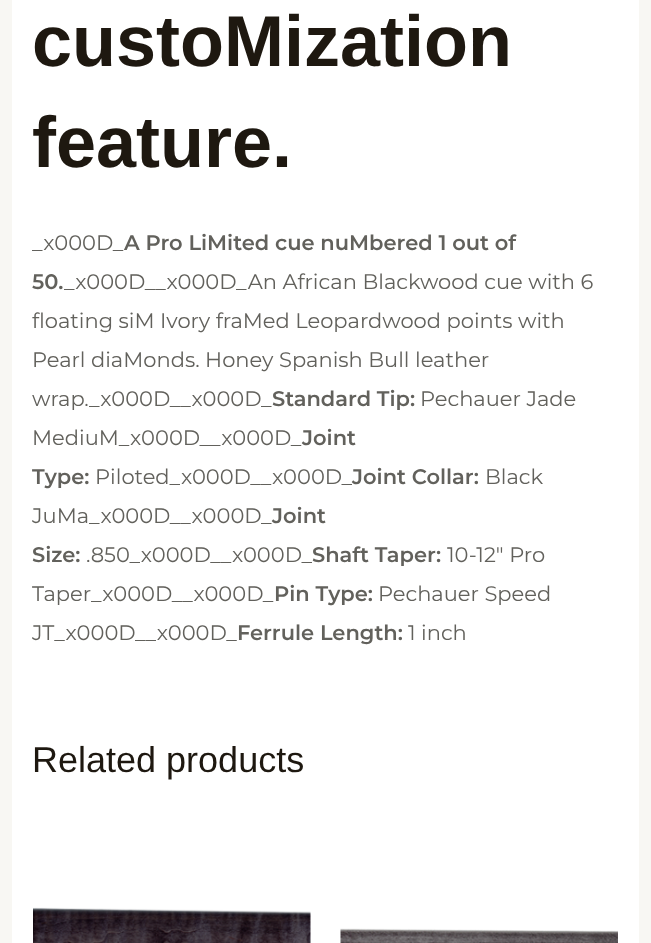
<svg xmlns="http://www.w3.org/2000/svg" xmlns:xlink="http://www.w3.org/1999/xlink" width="651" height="943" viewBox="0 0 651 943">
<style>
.cls-1{font:bold 72px Liberation Sans;fill:#1e1810}
.cls-2{font:21px Montserrat;fill:#62615c}
.cls-3{font:600 21px Montserrat;fill:#62615c}
.cls-4{font:36px Liberation Sans;fill:#1e1810}
</style>
<rect width="100%" height="100%" fill="#f8f7f3"/>
<rect fill="#ffffff" x="12" y="0" width="627" height="943"/>
<image xlink:href="image0.png" x="33" y="907" width="278" height="36"/>
<image xlink:href="image1.png" x="340" y="928" width="278" height="15"/>
<text class="cls-1"><tspan x="32" y="66">custoMization</tspan><tspan x="32" y="167">feature.</tspan></text>
<text class="cls-2" x="32" y="250">_x000D_</text>
<text class="cls-3" x="124" y="250">A Pro LiMited cue nuMbered 1 out of</text>
<text class="cls-3" x="32" y="289">50.</text>
<text class="cls-2" x="64" y="289">_x000D__x000D_An African Blackwood cue with 6</text>
<text class="cls-2"><tspan x="32" y="328">floating siM Ivory fraMed Leopardwood points with</tspan><tspan x="32" y="367">Pearl diaMonds. Honey Spanish Bull leather</tspan><tspan x="32" y="406">wrap._x000D__x000D_</tspan></text>
<text class="cls-3" x="272" y="406">Standard Tip:</text>
<text class="cls-2" x="420" y="406">Pechauer Jade</text>
<text class="cls-2" x="32" y="445">MediuM_x000D__x000D_</text>
<text class="cls-3" x="302" y="445">Joint</text>
<text class="cls-3" x="32" y="484">Type:</text>
<text class="cls-2" x="95" y="484">Piloted_x000D__x000D_</text>
<text class="cls-3" x="352" y="484">Joint Collar:</text>
<text class="cls-2" x="485" y="484">Black</text>
<text class="cls-2" x="32" y="523">JuMa_x000D__x000D_</text>
<text class="cls-3" x="272" y="523">Joint</text>
<text class="cls-3" x="32" y="562">Size:</text>
<text class="cls-2" x="86" y="562">.850_x000D__x000D_</text>
<text class="cls-3" x="312" y="562">Shaft Taper:</text>
<text class="cls-2" x="447" y="562">10-12″ Pro</text>
<text class="cls-2" x="32" y="601">Taper_x000D__x000D_</text>
<text class="cls-3" x="274" y="601">Pin Type:</text>
<text class="cls-2" x="378" y="601">Pechauer Speed</text>
<text class="cls-2" x="32" y="640">JT_x000D__x000D_</text>
<text class="cls-3" x="237" y="640">Ferrule Length:</text>
<text class="cls-2" x="408" y="640">1 inch</text>
<text class="cls-4" x="32" y="772">Related products</text>
</svg>
